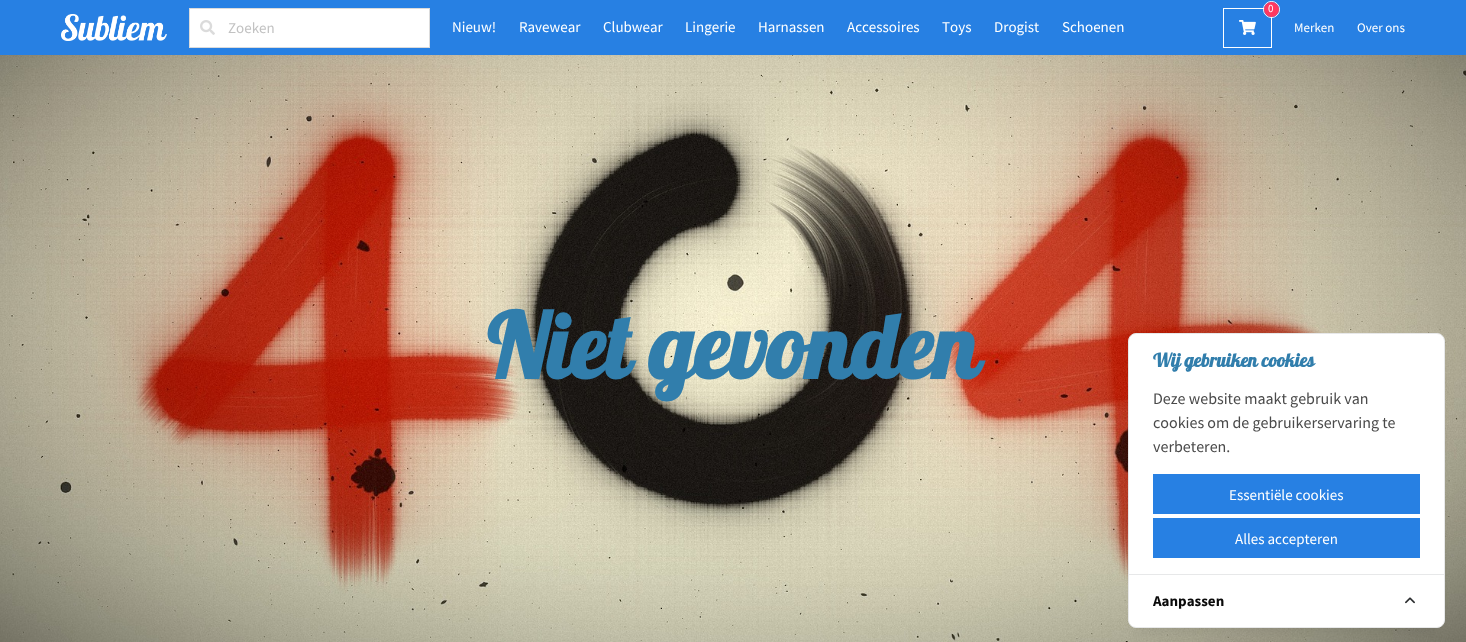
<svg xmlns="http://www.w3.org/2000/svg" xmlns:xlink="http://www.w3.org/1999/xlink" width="1466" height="642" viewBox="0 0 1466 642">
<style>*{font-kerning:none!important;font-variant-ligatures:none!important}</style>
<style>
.cls-1{font:15px Source Sans Pro;fill:#c2c2c2}
.cls-2{font:15px Source Sans Pro;fill:#ffffff}
.cls-3{font:11px Source Sans Pro;fill:#ffffff}
.cls-4{font:13px Source Sans Pro;fill:#ffffff}
.cls-5{font:bold 90px Lobster;fill:#317eac}
.cls-6{font:bold 18.75px Lobster;fill:#317eac}
.cls-7{font:16px Source Sans Pro;fill:#4a4a4a}
.cls-8{font:bold 15px Source Sans Pro;fill:#0a0a0a}
</style>
<rect width="100%" height="100%" fill="#ffffff"/>
<rect fill="#2780e3" x="0" y="0" width="1466" height="55"/>
<image xlink:href="image0.png" x="61" y="14" width="106" height="27"/>
<rect fill="#ffffff" stroke="#dbdbdb" x="189.5" y="8.5" width="240" height="39"/>
<image xlink:href="image1.png" x="200" y="20" width="15" height="15"/>
<rect fill="none" stroke="#ffffff" x="1223.5" y="8.5" width="48" height="39"/>
<circle fill="none" stroke="#ffffff" cx="1271.5" cy="9.5" r="8"/>
<circle fill="#ff3860" cx="1271.5" cy="9.5" r="7.5"/>
<image xlink:href="image2.png" x="1239" y="20" width="17" height="15"/>
<image xlink:href="image3.png" x="0" y="55" width="1466" height="587"/>
<rect fill="#000000" fill-opacity="0.08" filter="blur(6px)" x="1136" y="353" width="301" height="279"/>
<rect fill="#ffffff" stroke="#e7e8e9" x="1128.5" y="333.5" width="316" height="294" rx="7.5"/>
<rect fill="#2780e3" x="1153" y="474" width="267" height="40"/>
<rect fill="#2780e3" x="1153" y="518" width="267" height="40"/>
<rect fill="#e7e8e9" x="1129" y="574" width="315" height="1"/>
<image xlink:href="image4.png" x="1405" y="597" width="10" height="7"/>
<text class="cls-1" x="228" y="33">Zoeken</text>
<text class="cls-2" x="452" y="32">Nieuw!</text>
<text class="cls-2" x="519" y="32">Ravewear</text>
<text class="cls-2" x="603" y="32">Clubwear</text>
<text class="cls-2" x="685" y="32">Lingerie</text>
<text class="cls-2" x="758" y="32">Harnassen</text>
<text class="cls-2" x="847" y="32">Accessoires</text>
<text class="cls-2" x="942" y="32">Toys</text>
<text class="cls-2" x="994" y="32">Drogist</text>
<text class="cls-2" x="1062" y="32">Schoenen</text>
<text class="cls-3" x="1268" y="12">0</text>
<text class="cls-4" x="1294" y="32">Merken</text>
<text class="cls-4" x="1357" y="32">Over ons</text>
<text class="cls-5" x="487" y="379">Niet gevonden</text>
<text class="cls-6" x="1153" y="367">Wij gebruiken cookies</text>
<text class="cls-7"><tspan x="1153" y="404">Deze website maakt gebruik van</tspan><tspan x="1153" y="428">cookies om de gebruikerservaring te</tspan><tspan x="1153" y="452">verbeteren.</tspan></text>
<text class="cls-2" x="1229" y="500">Essentiële cookies</text>
<text class="cls-2" x="1235" y="544">Alles accepteren</text>
<text class="cls-8" x="1153" y="606">Aanpassen</text>
</svg>
